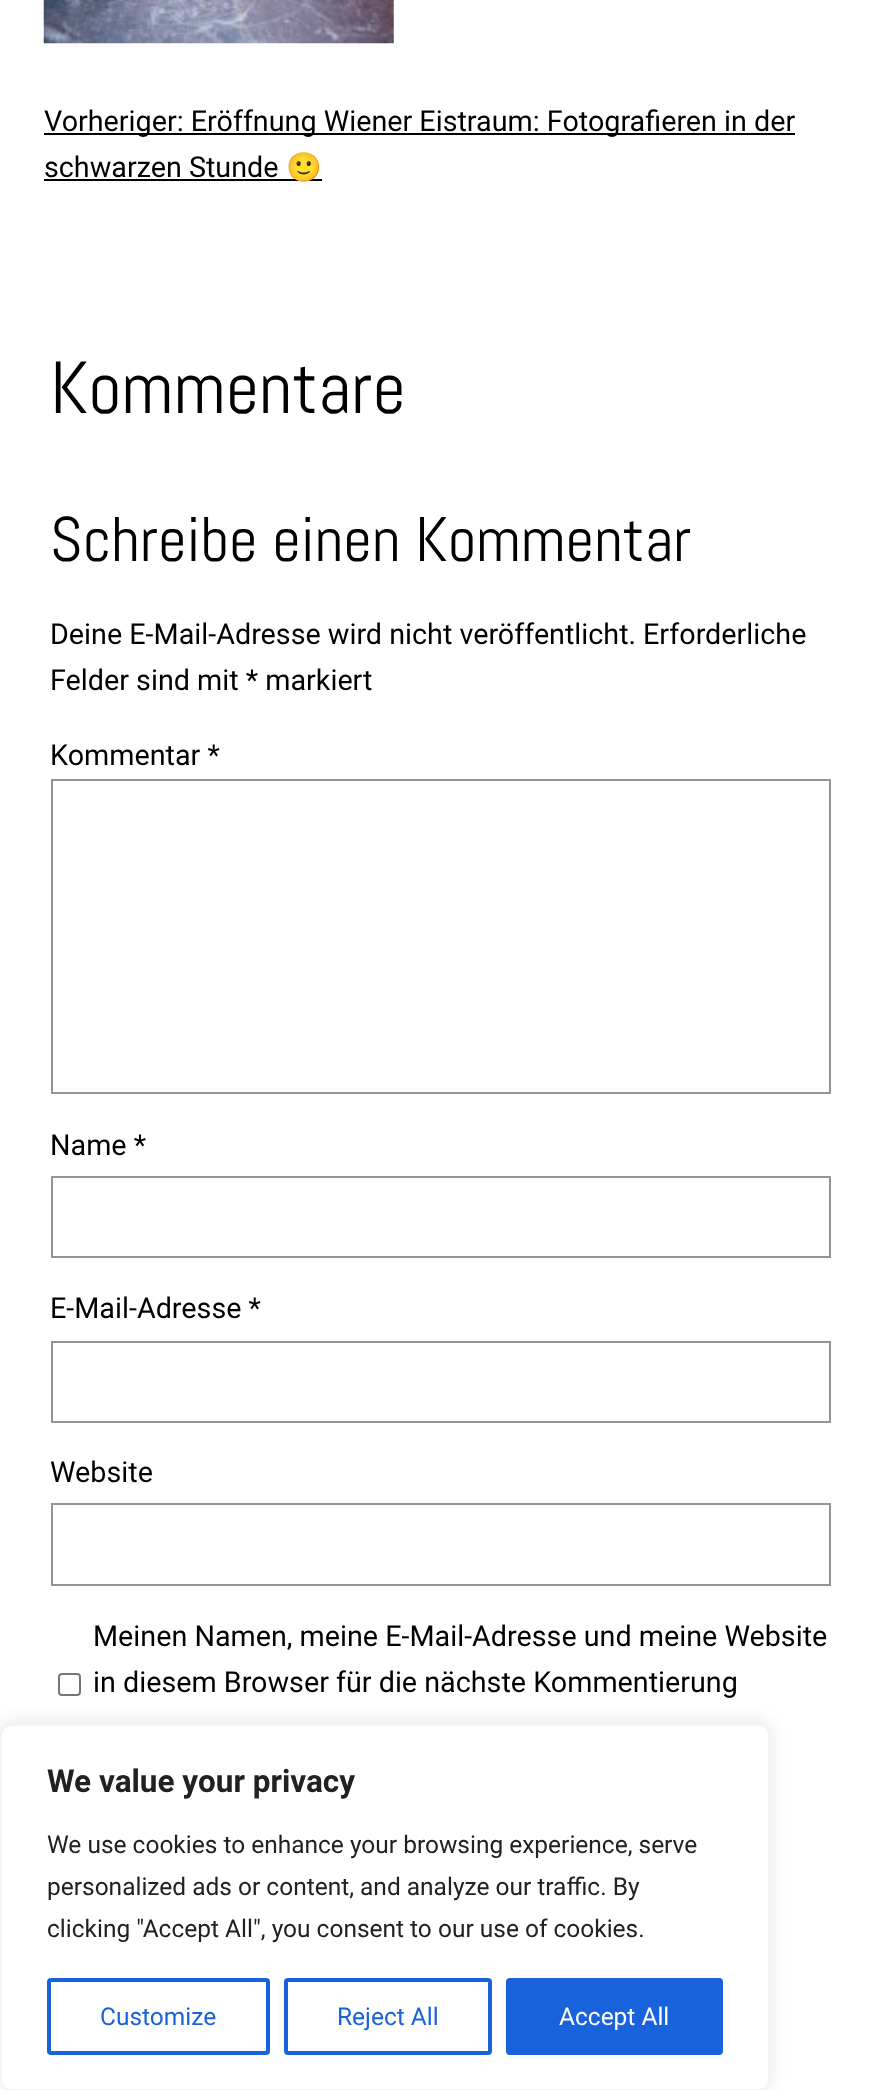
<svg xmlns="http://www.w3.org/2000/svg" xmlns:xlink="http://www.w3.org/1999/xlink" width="881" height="2090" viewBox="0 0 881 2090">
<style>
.cls-1{font:28.75px Roboto;fill:#000000}
.cls-2{font:28.75px Noto Color Emoji;fill:#000000}
.cls-3{font:73.5px Abel;fill:#000000}
.cls-4{font:63px Abel;fill:#000000}
.cls-5{font:bold 31.5px Roboto;fill:#212121}
.cls-6{font:24.5px Roboto;fill:#212121}
.cls-7{font:24.5px Roboto;fill:#1863dc}
.cls-8{font:24.5px Roboto;fill:#ffffff}
</style>
<rect width="100%" height="100%" fill="#ffffff"/>
<image xlink:href="image0.png" x="43" y="0" width="351" height="44"/>
<rect fill="#000000" x="44" y="133" width="751" height="2"/>
<rect fill="#000000" x="44" y="179" width="278" height="2"/>
<rect fill="none" stroke="#949494" stroke-width="2" x="52" y="780" width="778" height="313"/>
<rect fill="none" stroke="#949494" stroke-width="2" x="52" y="1177" width="778" height="80"/>
<rect fill="none" stroke="#949494" stroke-width="2" x="52" y="1342" width="778" height="80"/>
<rect fill="none" stroke="#949494" stroke-width="2" x="52" y="1504" width="778" height="81"/>
<rect fill="none" stroke="#767676" stroke-width="2" x="59" y="1674" width="21" height="21" rx="3"/>
<rect fill="#acabab" fill-opacity="0.3" filter="blur(9px)" x="0" y="1722" width="770" height="368" rx="11"/>
<rect fill="#ffffff" stroke="#f4f4f4" stroke-width="2" x="1" y="1725" width="768" height="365" rx="10"/>
<rect fill="none" stroke="#1863dc" stroke-width="4" x="49" y="1980" width="219" height="73" rx="2"/>
<rect fill="none" stroke="#1863dc" stroke-width="4" x="286" y="1980" width="204" height="73" rx="2"/>
<rect fill="#1863dc" stroke="#1863dc" stroke-width="4" x="508" y="1980" width="213" height="73" rx="2"/>
<text class="cls-1"><tspan x="44" y="131">Vorheriger: Eröffnung Wiener Eistraum: Fotografieren in der</tspan><tspan x="44" y="177">schwarzen Stunde</tspan></text>
<text class="cls-2" x="286" y="177">🙂</text>
<text class="cls-3" x="50" y="413">Kommentare</text>
<text class="cls-4" x="50" y="561">Schreibe einen Kommentar</text>
<text class="cls-1" x="50" y="644">Deine E-Mail-Adresse wird nicht veröffentlicht.</text>
<text class="cls-1" x="643" y="644">Erforderliche</text>
<text class="cls-1" x="50" y="690">Felder sind mit * markiert</text>
<text class="cls-1" x="50" y="765">Kommentar *</text>
<text class="cls-1" x="50" y="1155">Name *</text>
<text class="cls-1" x="50" y="1318">E-Mail-Adresse *</text>
<text class="cls-1" x="50" y="1482">Website</text>
<text class="cls-1"><tspan x="93" y="1646">Meinen Namen, meine E-Mail-Adresse und meine Website</tspan><tspan x="93" y="1692">in diesem Browser für die nächste Kommentierung</tspan></text>
<text class="cls-5" x="47" y="1792">We value your privacy</text>
<text class="cls-6"><tspan x="47" y="1853">We use cookies to enhance your browsing experience, serve</tspan><tspan x="47" y="1895">personalized ads or content, and analyze our traffic. By</tspan><tspan x="47" y="1937">clicking "Accept All", you consent to our use of cookies.</tspan></text>
<text class="cls-7" x="100" y="2025">Customize</text>
<text class="cls-7" x="337" y="2025">Reject All</text>
<text class="cls-8" x="559" y="2025">Accept All</text>
</svg>
